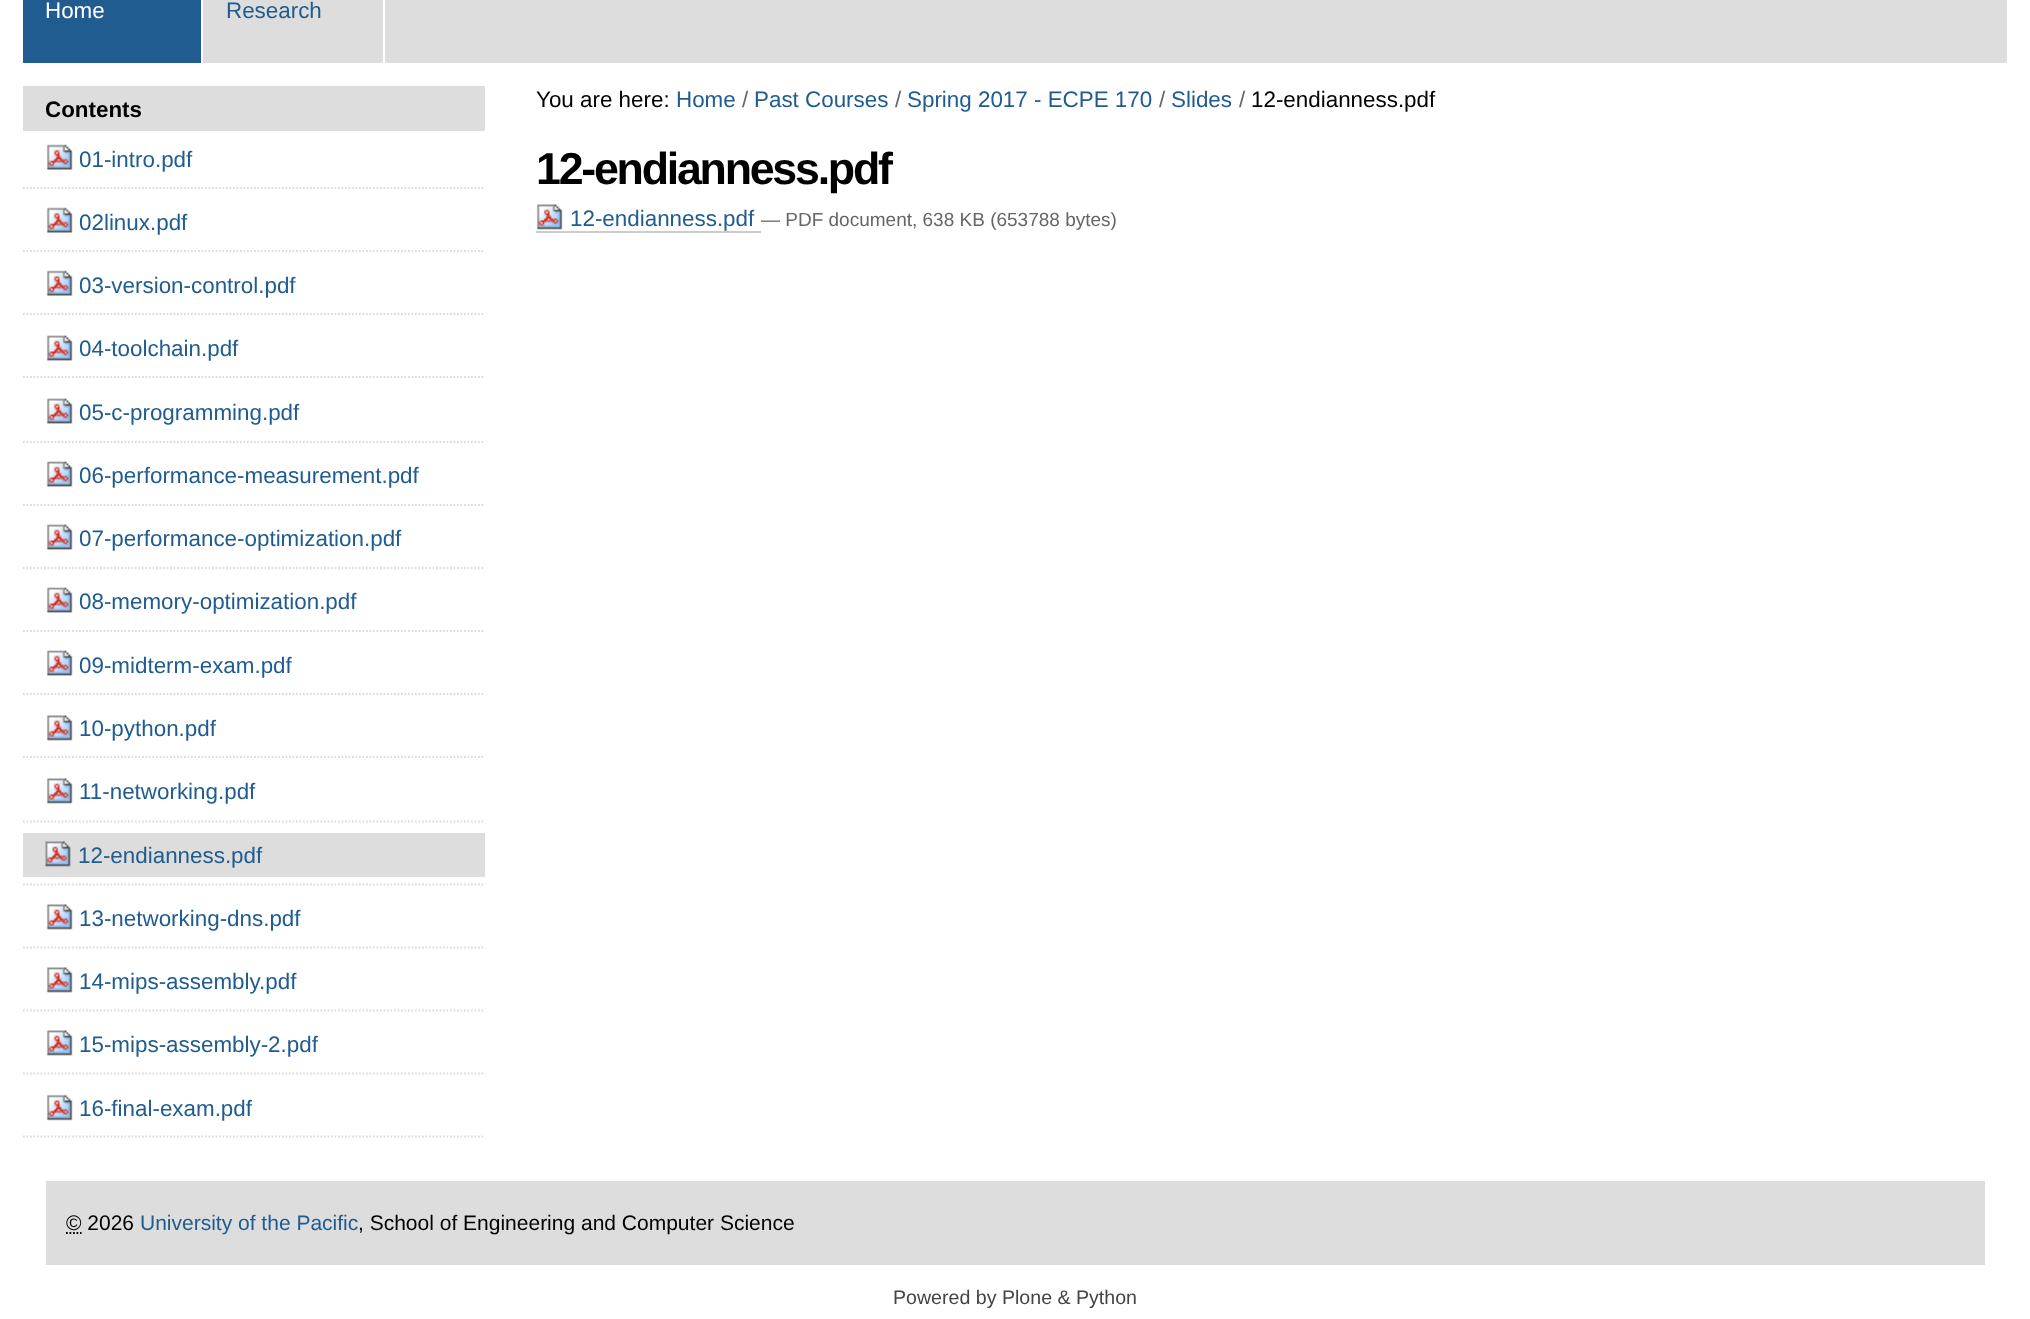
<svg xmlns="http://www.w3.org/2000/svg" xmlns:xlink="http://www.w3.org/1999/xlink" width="2030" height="1319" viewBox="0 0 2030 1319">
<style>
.cls-1{font:22.4px Liberation Sans;fill:#ffffff}
.cls-2{font:22.4px Liberation Sans;fill:#205c90}
.cls-3{font:bold 22.4px Liberation Sans;fill:#000000}
.cls-4{font:22.4px Liberation Sans;fill:#000000}
.cls-5{font:22.4px Liberation Sans;fill:#666666}
.cls-6{font:bold 44.75px Liberation Sans;letter-spacing:-2.25px;fill:#000000}
.cls-7{font:19px Liberation Sans;fill:#666666}
.cls-8{font:21px Liberation Sans;fill:#000000}
.cls-9{font:21px Liberation Sans;fill:#205c90}
.cls-10{font:19.6px Liberation Sans;fill:#444444}
</style>
<rect width="100%" height="100%" fill="#ffffff"/>
<rect fill="#dddddd" x="203" y="0" width="1804" height="63"/>
<rect fill="#205c90" x="23" y="0" width="178" height="63"/>
<rect fill="#ffffff" x="383" y="0" width="2" height="63"/>
<rect fill="#dddddd" x="23" y="86" width="462" height="45"/>
<path fill="none" stroke="#dddddd" stroke-width="1.8" stroke-dasharray="1.75 1.75" d="M23 188H485"/>
<image xlink:href="image0.png" x="46" y="144" width="27" height="26"/>
<path fill="none" stroke="#dddddd" stroke-width="1.8" stroke-dasharray="1.75 1.75" d="M23 251H485"/>
<image xlink:href="image0.png" x="46" y="207" width="27" height="26"/>
<path fill="none" stroke="#dddddd" stroke-width="1.8" stroke-dasharray="1.75 1.75" d="M23 314H485"/>
<image xlink:href="image0.png" x="46" y="270" width="27" height="26"/>
<path fill="none" stroke="#dddddd" stroke-width="1.8" stroke-dasharray="1.75 1.75" d="M23 377H485"/>
<image xlink:href="image1.png" x="46" y="335" width="27" height="26"/>
<path fill="none" stroke="#dddddd" stroke-width="1.8" stroke-dasharray="1.75 1.75" d="M23 442H485"/>
<image xlink:href="image1.png" x="46" y="398" width="27" height="26"/>
<path fill="none" stroke="#dddddd" stroke-width="1.8" stroke-dasharray="1.75 1.75" d="M23 505H485"/>
<image xlink:href="image1.png" x="46" y="461" width="27" height="26"/>
<path fill="none" stroke="#dddddd" stroke-width="1.8" stroke-dasharray="1.75 1.75" d="M23 568H485"/>
<image xlink:href="image1.png" x="46" y="524" width="27" height="26"/>
<path fill="none" stroke="#dddddd" stroke-width="1.8" stroke-dasharray="1.75 1.75" d="M23 631H485"/>
<image xlink:href="image1.png" x="46" y="587" width="27" height="26"/>
<path fill="none" stroke="#dddddd" stroke-width="1.8" stroke-dasharray="1.75 1.75" d="M23 694H485"/>
<image xlink:href="image1.png" x="46" y="650" width="27" height="26"/>
<path fill="none" stroke="#dddddd" stroke-width="1.8" stroke-dasharray="1.75 1.75" d="M23 757H485"/>
<image xlink:href="image2.png" x="46" y="715" width="27" height="26"/>
<path fill="none" stroke="#dddddd" stroke-width="1.8" stroke-dasharray="1.75 1.75" d="M23 821.5H485"/>
<image xlink:href="image2.png" x="46" y="778" width="27" height="26"/>
<path fill="none" stroke="#dddddd" stroke-width="1.8" stroke-dasharray="1.75 1.75" d="M23 884.5H485"/>
<rect fill="#dddddd" x="23" y="833" width="462" height="44"/>
<image xlink:href="image3.png" x="45" y="841" width="26" height="26"/>
<path fill="none" stroke="#dddddd" stroke-width="1.8" stroke-dasharray="1.75 1.75" d="M23 947.5H485"/>
<image xlink:href="image2.png" x="46" y="904" width="27" height="26"/>
<path fill="none" stroke="#dddddd" stroke-width="1.8" stroke-dasharray="1.75 1.75" d="M23 1010.5H485"/>
<image xlink:href="image2.png" x="46" y="967" width="27" height="26"/>
<path fill="none" stroke="#dddddd" stroke-width="1.8" stroke-dasharray="1.75 1.75" d="M23 1073.5H485"/>
<image xlink:href="image2.png" x="46" y="1030" width="27" height="26"/>
<path fill="none" stroke="#dddddd" stroke-width="1.8" stroke-dasharray="1.75 1.75" d="M23 1136.5H485"/>
<image xlink:href="image4.png" x="46" y="1094" width="27" height="27"/>
<image xlink:href="image2.png" x="536" y="204" width="27" height="26"/>
<rect fill="#cccccc" x="536" y="231" width="225" height="2"/>
<rect fill="#dddddd" x="46" y="1181" width="1939" height="84"/>
<path fill="none" stroke="#000000" stroke-width="1.8" stroke-dasharray="1.75 1.75" d="M66 1233H81.5"/>
<text class="cls-1" x="45" y="18">Home</text>
<text class="cls-2" x="226" y="18">Research</text>
<text class="cls-3" x="45" y="117">Contents</text>
<text class="cls-2" x="79" y="167">01-intro.pdf</text>
<text class="cls-2" x="79" y="230">02linux.pdf</text>
<text class="cls-2" x="79" y="293">03-version-control.pdf</text>
<text class="cls-2" x="79" y="356">04-toolchain.pdf</text>
<text class="cls-2" x="79" y="420">05-c-programming.pdf</text>
<text class="cls-2" x="79" y="483">06-performance-measurement.pdf</text>
<text class="cls-2" x="79" y="546">07-performance-optimization.pdf</text>
<text class="cls-2" x="79" y="609">08-memory-optimization.pdf</text>
<text class="cls-2" x="79" y="673">09-midterm-exam.pdf</text>
<text class="cls-2" x="79" y="736">10-python.pdf</text>
<text class="cls-2" x="79" y="799">11-networking.pdf</text>
<text class="cls-2" x="78" y="863">12-endianness.pdf</text>
<text class="cls-2" x="79" y="926">13-networking-dns.pdf</text>
<text class="cls-2" x="79" y="989">14-mips-assembly.pdf</text>
<text class="cls-2" x="79" y="1052">15-mips-assembly-2.pdf</text>
<text class="cls-2" x="79" y="1116">16-final-exam.pdf</text>
<text class="cls-4" x="536" y="107">You are here:</text>
<text class="cls-2" x="676" y="107">Home</text>
<text class="cls-5" x="742" y="107">/</text>
<text class="cls-2" x="754" y="107">Past Courses</text>
<text class="cls-5" x="895" y="107">/</text>
<text class="cls-2" x="907" y="107">Spring 2017 - ECPE 170</text>
<text class="cls-5" x="1159" y="107">/</text>
<text class="cls-2" x="1171" y="107">Slides</text>
<text class="cls-5" x="1239" y="107">/</text>
<text class="cls-4" x="1251" y="107">12-endianness.pdf</text>
<text class="cls-6" x="536" y="184">12-endianness.pdf</text>
<text class="cls-2" x="570" y="226">12-endianness.pdf</text>
<text class="cls-7" x="761" y="226">— PDF document, 638 KB (653788 bytes)</text>
<text class="cls-8" x="66" y="1230">© 2026</text>
<text class="cls-9" x="140" y="1230">University of the Pacific</text>
<text class="cls-8" x="358" y="1230">, School of Engineering and Computer Science</text>
<text class="cls-10" x="893" y="1304">Powered by Plone &amp; Python</text>
</svg>
